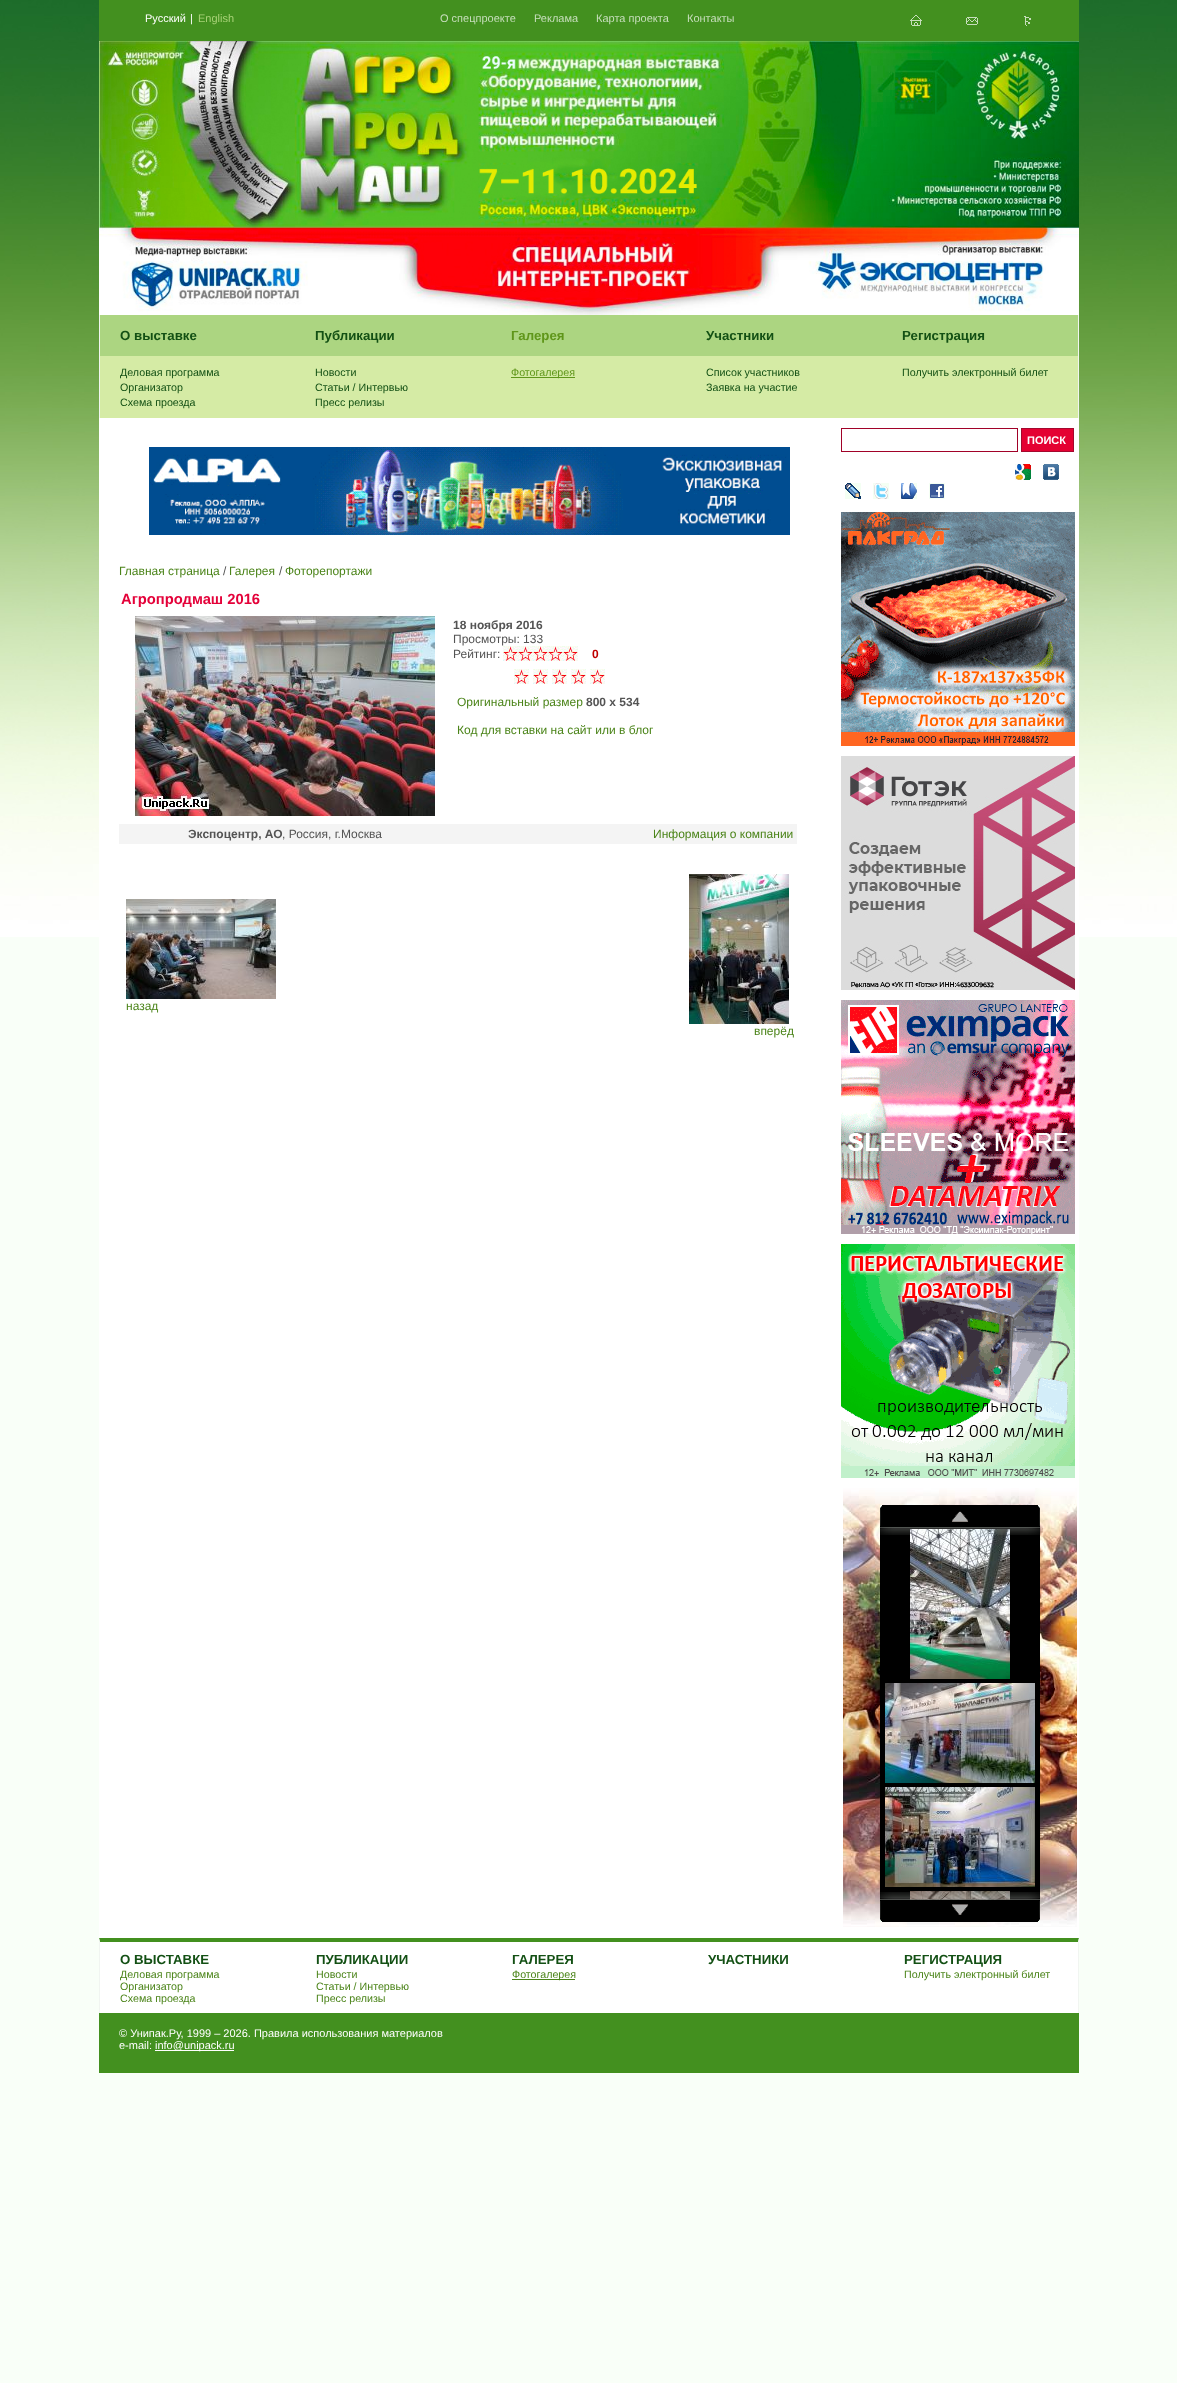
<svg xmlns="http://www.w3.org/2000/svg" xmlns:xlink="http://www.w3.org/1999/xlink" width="1177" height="2383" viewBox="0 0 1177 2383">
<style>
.cls-1{font:11px Liberation Sans;fill:#ffffff}
.cls-2{font:11px Liberation Sans;fill:#a8d277}
.cls-3{font:11px Liberation Sans;fill:#c7debc}
.cls-4{font:bold 13.25px Liberation Sans;fill:#135014}
.cls-5{font:bold 13.25px Liberation Sans;fill:#5f961a}
.cls-6{font:10.7px Liberation Sans;fill:#135014}
.cls-7{font:10.7px Liberation Sans;fill:#5f961a}
.cls-8{font:bold 11px Liberation Sans;fill:#ffffff}
.cls-9{font:12px Liberation Sans;fill:#4b8419}
.cls-10{font:12px Liberation Sans;fill:#545454}
.cls-11{font:bold 14.75px Liberation Sans;fill:#e40139}
.cls-12{font:bold 12px Liberation Sans;fill:#545454}
.cls-13{font:bold 12px Liberation Sans;fill:#bf0000}
.cls-14{font:10.7px Liberation Sans;fill:#4b8419}
</style>
<rect width="100%" height="100%" fill="#f9fff8"/>
<image xlink:href="image0.png" x="0" y="0" width="1177" height="937"/>
<rect fill="#43901f" x="99" y="0" width="980" height="41"/>
<image xlink:href="image1.png" x="910" y="15" width="12" height="11"/>
<image xlink:href="image2.png" x="966" y="17" width="12" height="8"/>
<image xlink:href="image3.png" x="1024" y="16" width="7" height="10"/>
<image xlink:href="image4.png" x="99" y="41" width="980" height="274"/>
<rect fill="#f1f5f1" x="1078" y="315" width="1" height="103"/>
<rect fill="#f1f5f1" x="99" y="315" width="1" height="103"/>
<rect fill="#acd581" x="100" y="315" width="978" height="41"/>
<rect fill="#d5eba5" x="100" y="356" width="978" height="62"/>
<rect fill="#5f961a" x="511" y="377" width="64" height="1"/>
<rect fill="#ffffff" x="99" y="418" width="980" height="1595"/>
<rect fill="none" stroke="#a10128" x="841.5" y="428.5" width="176" height="23"/>
<rect fill="#e40132" stroke="#a4082e" x="1021.5" y="428.5" width="52" height="23"/>
<image xlink:href="image5.png" x="1015" y="464" width="16" height="16"/>
<image xlink:href="image6.png" x="1043" y="464" width="16" height="16"/>
<image xlink:href="image7.png" x="845" y="483" width="16" height="16"/>
<image xlink:href="image8.png" x="873" y="483" width="16" height="16"/>
<image xlink:href="image9.png" x="901" y="483" width="16" height="16"/>
<image xlink:href="image10.png" x="929" y="483" width="16" height="16"/>
<image xlink:href="image11.png" x="841" y="512" width="234" height="234"/>
<image xlink:href="image12.png" x="841" y="756" width="234" height="234"/>
<image xlink:href="image13.png" x="841" y="1000" width="234" height="234"/>
<image xlink:href="image14.png" x="841" y="1244" width="234" height="234"/>
<image xlink:href="image15.png" x="843" y="1488" width="234" height="439"/>
<rect fill="#000000" x="880" y="1527" width="160" height="373"/>
<image xlink:href="image17.png" x="910" y="1529" width="100" height="150"/>
<image xlink:href="image16.png" x="880" y="1505" width="160" height="30"/>
<image xlink:href="image18.png" x="885" y="1683" width="150" height="100"/>
<image xlink:href="image19.png" x="885" y="1787" width="150" height="100"/>
<image xlink:href="image20.png" x="910" y="1891" width="100" height="9"/>
<image xlink:href="image21.png" x="880" y="1892" width="160" height="30"/>
<image xlink:href="image22.png" x="149" y="447" width="641" height="88"/>
<image xlink:href="image23.png" x="135" y="616" width="300" height="200"/>
<image xlink:href="image24.png" x="503" y="646" width="15" height="15"/>
<image xlink:href="image24.png" x="518" y="646" width="15" height="15"/>
<image xlink:href="image24.png" x="533" y="646" width="15" height="15"/>
<image xlink:href="image24.png" x="548" y="646" width="15" height="15"/>
<image xlink:href="image24.png" x="563" y="646" width="15" height="15"/>
<image xlink:href="image24.png" x="514" y="669" width="15" height="15"/>
<image xlink:href="image24.png" x="533" y="669" width="15" height="15"/>
<image xlink:href="image24.png" x="552" y="669" width="15" height="15"/>
<image xlink:href="image24.png" x="571" y="669" width="15" height="15"/>
<image xlink:href="image24.png" x="590" y="669" width="15" height="15"/>
<rect fill="#f4f4f4" x="119" y="824" width="678" height="20"/>
<image xlink:href="image25.png" x="126" y="899" width="150" height="100"/>
<image xlink:href="image26.png" x="689" y="874" width="100" height="150"/>
<path fill="#43901f" d="M99 1938H1079L1078 1942H100Z"/>
<path fill="#f1f5f1" d="M1079 1938V2013H1078V1942Z"/>
<path fill="#f1f5f1" d="M99 2013V1938L100 1942V2013Z"/>
<rect fill="#4b8419" x="512" y="1979" width="63" height="1"/>
<rect fill="#43901f" x="99" y="2013" width="980" height="60"/>
<rect fill="#ffffff" x="155" y="2050" width="79" height="1"/>
<text class="cls-1" x="145" y="22">Русский</text>
<text class="cls-1" x="190" y="22">|</text>
<text class="cls-2" x="198" y="22">English</text>
<text class="cls-3" x="440" y="22">О спецпроекте</text>
<text class="cls-3" x="534" y="22">Реклама</text>
<text class="cls-3" x="596" y="22">Карта проекта</text>
<text class="cls-3" x="687" y="22">Контакты</text>
<text class="cls-4" x="120" y="340">О выставке</text>
<text class="cls-4" x="315" y="340">Публикации</text>
<text class="cls-5" x="511" y="340">Галерея</text>
<text class="cls-4" x="706" y="340">Участники</text>
<text class="cls-4" x="902" y="340">Регистрация</text>
<text class="cls-6"><tspan x="120" y="376">Деловая программа</tspan><tspan x="120" y="391">Организатор</tspan><tspan x="120" y="406">Схема проезда</tspan></text>
<text class="cls-6"><tspan x="315" y="376">Новости</tspan><tspan x="315" y="391">Статьи / Интервью</tspan><tspan x="315" y="406">Пресс релизы</tspan></text>
<text class="cls-7" x="511" y="376">Фотогалерея</text>
<text class="cls-6"><tspan x="706" y="376">Список участников</tspan><tspan x="706" y="391">Заявка на участие</tspan></text>
<text class="cls-6" x="902" y="376">Получить электронный билет</text>
<text class="cls-8" x="1027" y="444">ПОИСК</text>
<text class="cls-9" x="119" y="575">Главная страница</text>
<text class="cls-10" x="223" y="575">/</text>
<text class="cls-9" x="229" y="575">Галерея</text>
<text class="cls-10" x="279" y="575">/</text>
<text class="cls-9" x="285" y="575">Фоторепортажи</text>
<text class="cls-11" x="121" y="604">Агропродмаш 2016</text>
<text class="cls-12" x="453" y="629">18 ноября 2016</text>
<text class="cls-10"><tspan x="453" y="643">Просмотры: 133</tspan><tspan x="453" y="658">Рейтинг:</tspan></text>
<text class="cls-13" x="592" y="658">0</text>
<text class="cls-9" x="457" y="706">Оригинальный размер</text>
<text class="cls-12" x="586" y="706">800 x 534</text>
<text class="cls-9" x="457" y="734">Код для вставки на сайт или в блог</text>
<text class="cls-12" x="188" y="838">Экспоцентр, АО</text>
<text class="cls-10" x="282" y="838">, Россия, г.Москва</text>
<text class="cls-9" x="653" y="838">Информация о компании</text>
<text class="cls-9" x="126" y="1010">назад</text>
<text class="cls-9" x="754" y="1035">вперёд</text>
<text class="cls-4" x="120" y="1964">О ВЫСТАВКЕ</text>
<text class="cls-4" x="316" y="1964">ПУБЛИКАЦИИ</text>
<text class="cls-4" x="512" y="1964">ГАЛЕРЕЯ</text>
<text class="cls-4" x="708" y="1964">УЧАСТНИКИ</text>
<text class="cls-4" x="904" y="1964">РЕГИСТРАЦИЯ</text>
<text class="cls-14"><tspan x="120" y="1978">Деловая программа</tspan><tspan x="120" y="1990">Организатор</tspan><tspan x="120" y="2002">Схема проезда</tspan></text>
<text class="cls-14"><tspan x="316" y="1978">Новости</tspan><tspan x="316" y="1990">Статьи / Интервью</tspan><tspan x="316" y="2002">Пресс релизы</tspan></text>
<text class="cls-14" x="512" y="1978">Фотогалерея</text>
<text class="cls-14" x="904" y="1978">Получить электронный билет</text>
<text class="cls-1"><tspan x="119" y="2037">© Унипак.Ру, 1999 – 2026. Правила использования материалов</tspan><tspan x="119" y="2049">e-mail:</tspan></text>
<text class="cls-1" x="155" y="2049">info@unipack.ru</text>
</svg>
